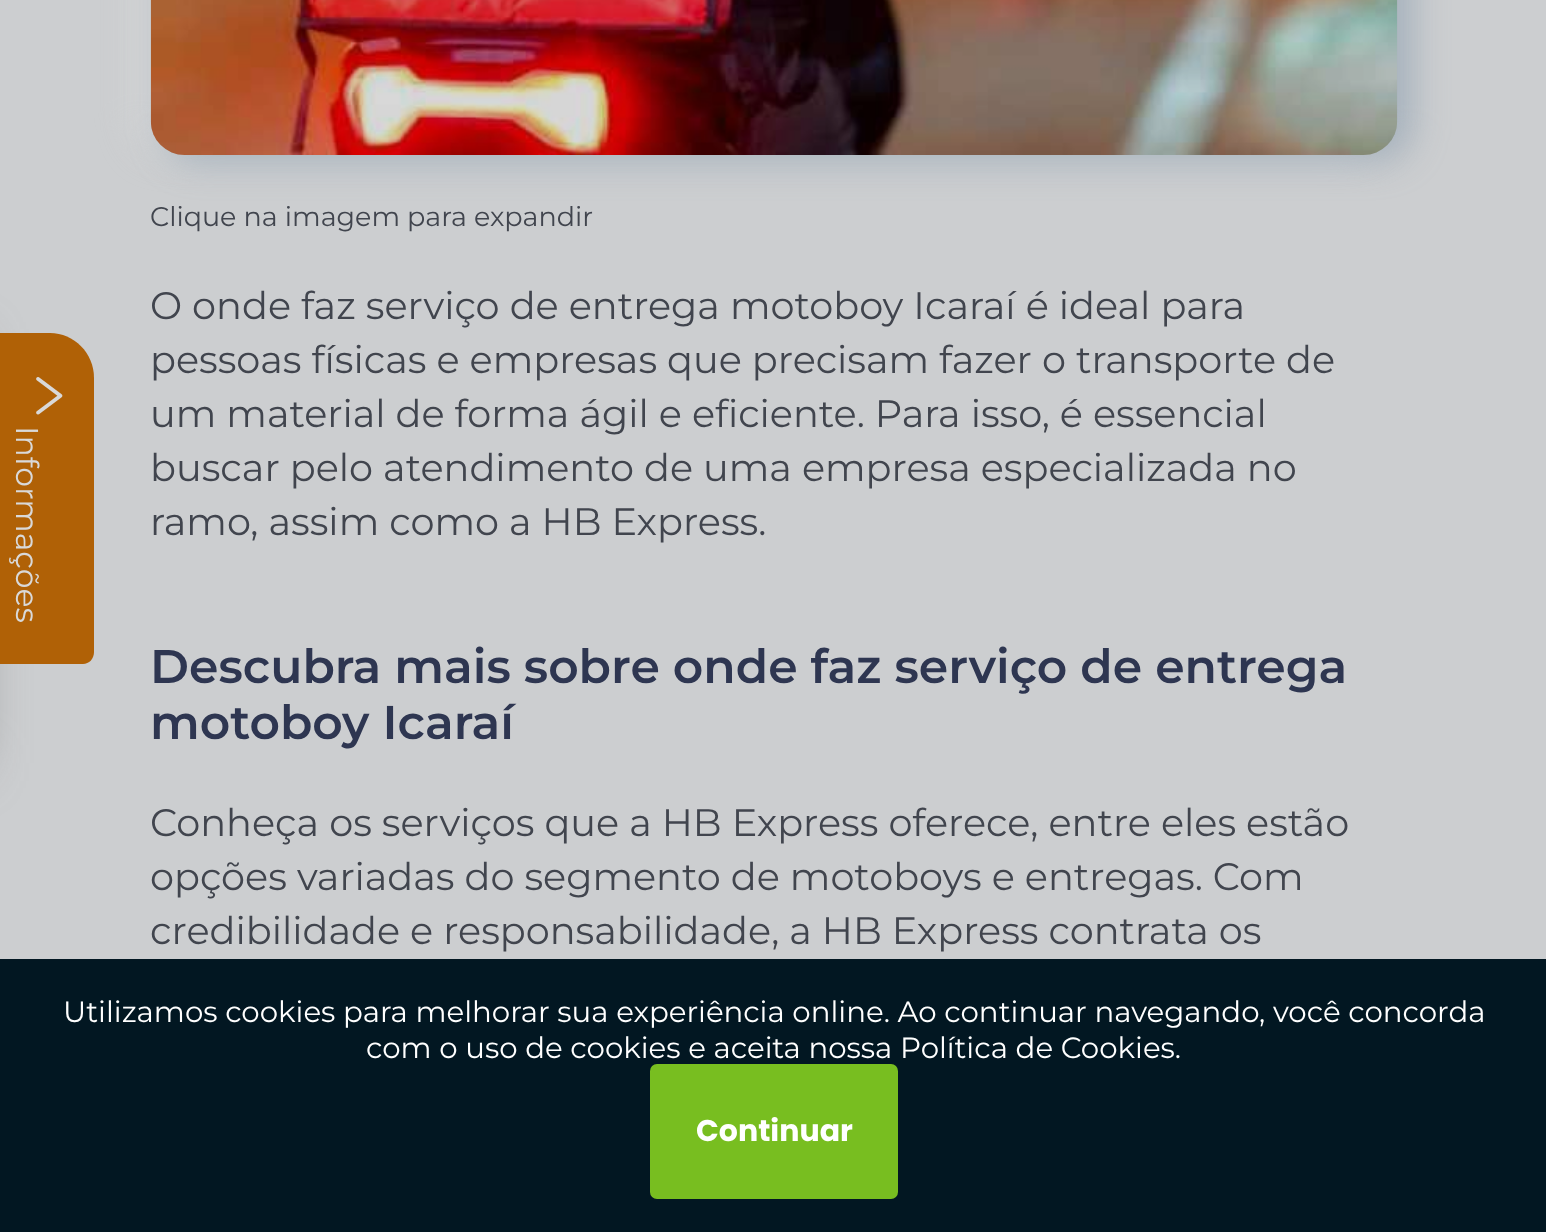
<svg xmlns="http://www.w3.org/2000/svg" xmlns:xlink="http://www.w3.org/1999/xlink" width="1546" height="1232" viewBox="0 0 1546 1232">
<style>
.cls-1{font:31.5px Montserrat;fill:#d9d9d9}
.cls-2{font:27px Montserrat;fill:#41454e}
.cls-3{font:38.25px Montserrat;fill:#41454e}
.cls-4{font:600 47.25px Montserrat;fill:#2e3651}
.cls-5{font:29.25px Montserrat;fill:#ffffff}
.cls-6{font:bold 30px Poppins;fill:#ffffff}
</style>
<rect width="100%" height="100%" fill="#ccced0"/>
<rect fill="#717171" filter="blur(27px)" x="-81" y="347" width="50" height="416"/>
<path fill="#b06106" d="M94 378V652C94 659 89 664 83 664H-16V333H50C74 333 94 353 94 378Z"/>
<image xlink:href="image0.png" x="36" y="377" width="27" height="38"/>
<rect fill="#d9d9d9" fill-opacity="0.8" filter="blur(18px)" x="137" y="-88" width="1247" height="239" rx="34"/>
<rect fill="#748ca2" fill-opacity="0.48" filter="blur(18px)" x="164" y="-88" width="1247" height="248" rx="34"/>
<image xlink:href="image1.png" x="150" y="0" width="1248" height="155"/>
<rect fill="#021722" x="0" y="959" width="1546" height="273"/>
<rect fill="#78be20" x="650" y="1064" width="248" height="135" rx="7"/>
<text class="cls-1" x="16" y="426" transform="rotate(90 16 426)">Informações</text>
<text class="cls-2" x="150" y="226">Clique na imagem para expandir</text>
<text class="cls-3"><tspan x="150" y="319">O onde faz serviço de entrega motoboy Icaraí é ideal para</tspan><tspan x="150" y="373">pessoas físicas e empresas que precisam fazer o transporte de</tspan><tspan x="150" y="427">um material de forma ágil e eficiente. Para isso, é essencial</tspan><tspan x="150" y="481">buscar pelo atendimento de uma empresa especializada no</tspan><tspan x="150" y="535">ramo, assim como a HB Express.</tspan></text>
<text class="cls-4"><tspan x="150" y="683">Descubra mais sobre onde faz serviço de entrega</tspan><tspan x="150" y="739">motoboy Icaraí</tspan></text>
<text class="cls-3"><tspan x="150" y="836">Conheça os serviços que a HB Express oferece, entre eles estão</tspan><tspan x="150" y="890">opções variadas do segmento de motoboys e entregas. Com</tspan><tspan x="150" y="944">credibilidade e responsabilidade, a HB Express contrata os</tspan></text>
<text class="cls-5" x="63" y="1022">Utilizamos cookies para melhorar sua experiência online. Ao continuar navegando, você concorda</text>
<text class="cls-5" x="366" y="1058">com o uso de cookies e aceita nossa Política de Cookies.</text>
<text class="cls-6" x="696" y="1141">Continuar</text>
</svg>
